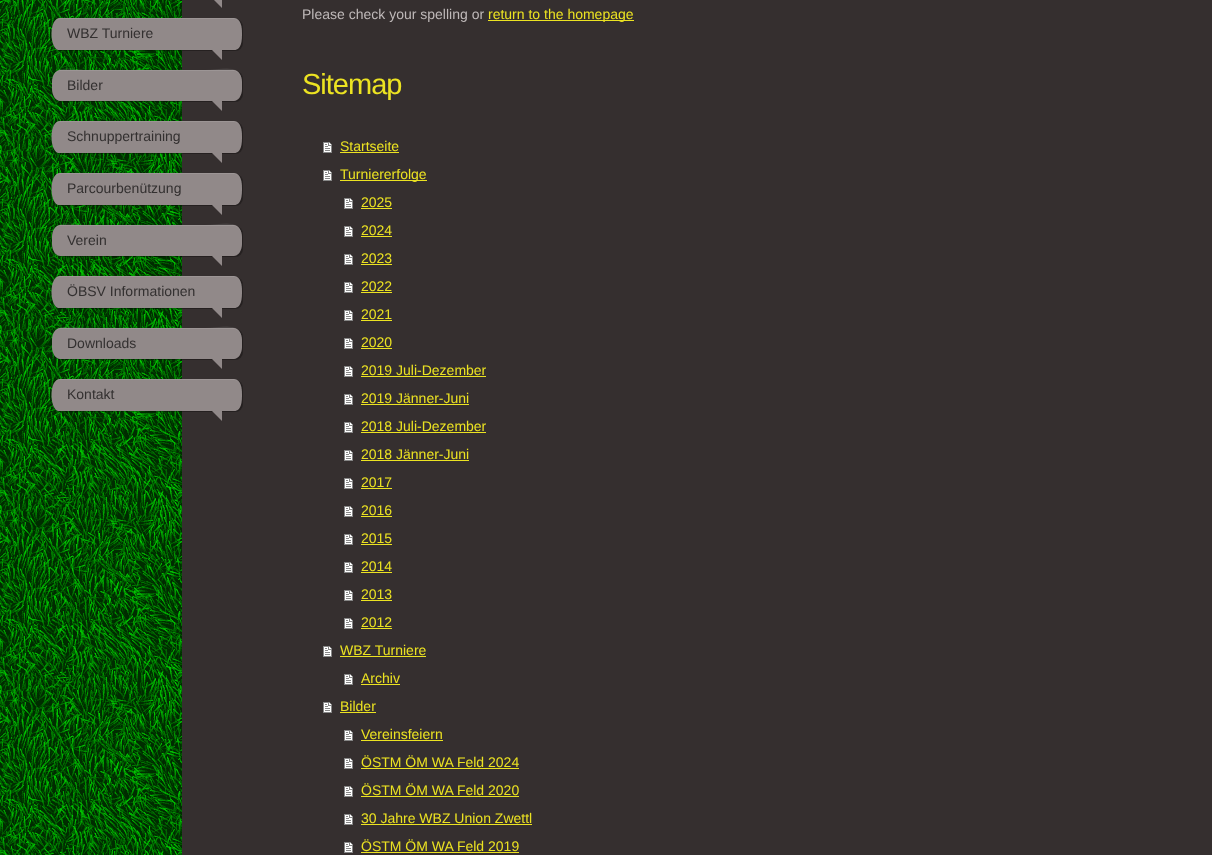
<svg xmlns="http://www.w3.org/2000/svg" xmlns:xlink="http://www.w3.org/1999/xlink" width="1212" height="855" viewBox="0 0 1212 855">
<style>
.cls-1{font:14px Liberation Sans;fill:#333030}
.cls-2{font:14px Liberation Sans;fill:#bfb9b9}
.cls-3{font:14px Liberation Sans;fill:#ece322}
.cls-4{font:29px Liberation Sans;letter-spacing:-1px;fill:#ece322}
</style>
<rect width="100%" height="100%" fill="#ffffff"/>
<image xlink:href="image0.png" x="0" y="0" width="182" height="855"/>
<rect fill="#352f2f" x="182" y="0" width="1030" height="855"/>
<path fill="#918989" d="M212-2H222V8Z"/>
<rect fill="#000000" fill-opacity="0.3" filter="blur(0.5px)" x="53" y="19" width="190" height="32" rx="8"/>
<path fill="#918989" d="M60 18H234C241 18 242 28 242 33C242 39 242 50 234 50H58C49 47 49 18 60 18Z"/>
<path fill="#ffffff" fill-opacity="0.1" d="M60 19H234C241 19 242 29 242 34V42V30C242 23 238 18 234 18H60C56 18 52 23 52 29C53 23 56 19 60 19Z"/>
<path fill="#918989" d="M212 50H222V60Z"/>
<rect fill="#000000" fill-opacity="0.3" filter="blur(0.5px)" x="53" y="71" width="190" height="31" rx="8"/>
<path fill="#918989" d="M60 70H234C238 70 242 75 242 82V89C242 96 238 101 234 101H60C56 101 52 96 52 89V82C52 75 56 70 60 70Z"/>
<path fill="#ffffff" fill-opacity="0.1" d="M60 71H234C238 71 242 76 242 83C242 62 221 70 205 70H89C73 70 52 62 52 83C52 76 56 71 60 71Z"/>
<path fill="#918989" d="M212 101H222V111Z"/>
<rect fill="#000000" fill-opacity="0.3" filter="blur(0.5px)" x="53" y="122" width="190" height="32" rx="8"/>
<path fill="#918989" d="M60 121H234C241 121 242 131 242 136C242 142 242 153 234 153H58C49 150 49 121 60 121Z"/>
<path fill="#ffffff" fill-opacity="0.1" d="M60 122H234C241 122 242 132 242 137V145V133C242 126 238 121 234 121H60C56 121 52 126 52 132C53 126 56 122 60 122Z"/>
<path fill="#918989" d="M212 153H222V163Z"/>
<rect fill="#000000" fill-opacity="0.3" filter="blur(0.5px)" x="53" y="174" width="190" height="32" rx="8"/>
<path fill="#918989" d="M60 173H234C241 173 242 183 242 188C242 194 242 205 234 205H58C49 202 49 173 60 173Z"/>
<path fill="#ffffff" fill-opacity="0.1" d="M60 174H234C241 174 242 184 242 189V197V185C242 178 238 173 234 173H60C56 173 52 178 52 184C53 178 56 174 60 174Z"/>
<path fill="#918989" d="M212 205H222V215Z"/>
<rect fill="#000000" fill-opacity="0.3" filter="blur(0.5px)" x="53" y="226" width="190" height="31" rx="8"/>
<path fill="#918989" d="M60 225H234C238 225 242 230 242 237V244C242 251 238 256 234 256H60C56 256 52 251 52 244V237C52 230 56 225 60 225Z"/>
<path fill="#ffffff" fill-opacity="0.1" d="M60 226H234C238 226 242 231 242 238C242 217 221 225 205 225H89C73 225 52 217 52 238C52 231 56 226 60 226Z"/>
<path fill="#918989" d="M212 256H222V266Z"/>
<rect fill="#000000" fill-opacity="0.3" filter="blur(0.5px)" x="53" y="277" width="190" height="32" rx="8"/>
<path fill="#918989" d="M60 276H234C241 276 242 286 242 291C242 297 242 308 234 308H58C49 305 49 276 60 276Z"/>
<path fill="#ffffff" fill-opacity="0.1" d="M60 277H234C241 277 242 287 242 292V300V288C242 281 238 276 234 276H60C56 276 52 281 52 287C53 281 56 277 60 277Z"/>
<path fill="#918989" d="M212 308H222V318Z"/>
<rect fill="#000000" fill-opacity="0.3" filter="blur(0.5px)" x="53" y="329" width="190" height="31" rx="8"/>
<path fill="#918989" d="M60 328H234C238 328 242 333 242 340V347C242 354 238 359 234 359H60C56 359 52 354 52 347V340C52 333 56 328 60 328Z"/>
<path fill="#ffffff" fill-opacity="0.1" d="M60 329H234C238 329 242 334 242 341C242 320 221 328 205 328H89C73 328 52 320 52 341C52 334 56 329 60 329Z"/>
<path fill="#918989" d="M212 359H222V369Z"/>
<rect fill="#000000" fill-opacity="0.3" filter="blur(0.5px)" x="53" y="380" width="190" height="32" rx="8"/>
<path fill="#918989" d="M60 379H234C241 379 242 389 242 394C242 400 242 411 234 411H58C49 408 49 379 60 379Z"/>
<path fill="#ffffff" fill-opacity="0.1" d="M60 380H234C241 380 242 390 242 395V403V391C242 384 238 379 234 379H60C56 379 52 384 52 390C53 384 56 380 60 380Z"/>
<path fill="#918989" d="M212 411H222V421Z"/>
<rect fill="#ece322" x="488" y="20" width="146" height="1"/>
<image xlink:href="image1.png" x="323" y="142" width="9" height="11"/>
<rect fill="#ece322" x="340" y="152" width="59" height="1"/>
<image xlink:href="image1.png" x="323" y="170" width="9" height="11"/>
<rect fill="#ece322" x="340" y="180" width="87" height="1"/>
<image xlink:href="image1.png" x="344" y="198" width="9" height="11"/>
<rect fill="#ece322" x="361" y="208" width="31" height="1"/>
<image xlink:href="image1.png" x="344" y="226" width="9" height="11"/>
<rect fill="#ece322" x="361" y="236" width="31" height="1"/>
<image xlink:href="image1.png" x="344" y="254" width="9" height="11"/>
<rect fill="#ece322" x="361" y="264" width="31" height="1"/>
<image xlink:href="image1.png" x="344" y="282" width="9" height="11"/>
<rect fill="#ece322" x="361" y="292" width="31" height="1"/>
<image xlink:href="image1.png" x="344" y="310" width="9" height="11"/>
<rect fill="#ece322" x="361" y="320" width="31" height="1"/>
<image xlink:href="image1.png" x="344" y="338" width="9" height="11"/>
<rect fill="#ece322" x="361" y="348" width="31" height="1"/>
<image xlink:href="image1.png" x="344" y="366" width="9" height="11"/>
<rect fill="#ece322" x="361" y="376" width="125" height="1"/>
<image xlink:href="image1.png" x="344" y="394" width="9" height="11"/>
<rect fill="#ece322" x="361" y="404" width="108" height="1"/>
<image xlink:href="image1.png" x="344" y="422" width="9" height="11"/>
<rect fill="#ece322" x="361" y="432" width="125" height="1"/>
<image xlink:href="image1.png" x="344" y="450" width="9" height="11"/>
<rect fill="#ece322" x="361" y="460" width="108" height="1"/>
<image xlink:href="image1.png" x="344" y="478" width="9" height="11"/>
<rect fill="#ece322" x="361" y="488" width="31" height="1"/>
<image xlink:href="image1.png" x="344" y="506" width="9" height="11"/>
<rect fill="#ece322" x="361" y="516" width="31" height="1"/>
<image xlink:href="image1.png" x="344" y="534" width="9" height="11"/>
<rect fill="#ece322" x="361" y="544" width="31" height="1"/>
<image xlink:href="image1.png" x="344" y="562" width="9" height="11"/>
<rect fill="#ece322" x="361" y="572" width="31" height="1"/>
<image xlink:href="image1.png" x="344" y="590" width="9" height="11"/>
<rect fill="#ece322" x="361" y="600" width="31" height="1"/>
<image xlink:href="image1.png" x="344" y="618" width="9" height="11"/>
<rect fill="#ece322" x="361" y="628" width="31" height="1"/>
<image xlink:href="image1.png" x="323" y="646" width="9" height="11"/>
<rect fill="#ece322" x="340" y="656" width="86" height="1"/>
<image xlink:href="image1.png" x="344" y="674" width="9" height="11"/>
<rect fill="#ece322" x="361" y="684" width="39" height="1"/>
<image xlink:href="image1.png" x="323" y="702" width="9" height="11"/>
<rect fill="#ece322" x="340" y="712" width="36" height="1"/>
<image xlink:href="image1.png" x="344" y="730" width="9" height="11"/>
<rect fill="#ece322" x="361" y="740" width="82" height="1"/>
<image xlink:href="image1.png" x="344" y="758" width="9" height="11"/>
<rect fill="#ece322" x="361" y="768" width="158" height="1"/>
<image xlink:href="image1.png" x="344" y="786" width="9" height="11"/>
<rect fill="#ece322" x="361" y="796" width="158" height="1"/>
<image xlink:href="image1.png" x="344" y="814" width="9" height="11"/>
<rect fill="#ece322" x="361" y="824" width="171" height="1"/>
<image xlink:href="image1.png" x="344" y="842" width="9" height="11"/>
<rect fill="#ece322" x="361" y="852" width="158" height="1"/>
<text class="cls-1" x="67" y="38">WBZ Turniere</text>
<text class="cls-1" x="67" y="90">Bilder</text>
<text class="cls-1" x="67" y="141">Schnuppertraining</text>
<text class="cls-1" x="67" y="193">Parcourbenützung</text>
<text class="cls-1" x="67" y="245">Verein</text>
<text class="cls-1" x="67" y="296">ÖBSV Informationen</text>
<text class="cls-1" x="67" y="348">Downloads</text>
<text class="cls-1" x="67" y="399">Kontakt</text>
<text class="cls-2" x="302" y="19">Please check your spelling or</text>
<text class="cls-3" x="488" y="19">return to the homepage</text>
<text class="cls-4" x="302" y="94">Sitemap</text>
<text class="cls-3" x="340" y="151">Startseite</text>
<text class="cls-3" x="340" y="179">Turniererfolge</text>
<text class="cls-3" x="361" y="207">2025</text>
<text class="cls-3" x="361" y="235">2024</text>
<text class="cls-3" x="361" y="263">2023</text>
<text class="cls-3" x="361" y="291">2022</text>
<text class="cls-3" x="361" y="319">2021</text>
<text class="cls-3" x="361" y="347">2020</text>
<text class="cls-3" x="361" y="375">2019 Juli-Dezember</text>
<text class="cls-3" x="361" y="403">2019 Jänner-Juni</text>
<text class="cls-3" x="361" y="431">2018 Juli-Dezember</text>
<text class="cls-3" x="361" y="459">2018 Jänner-Juni</text>
<text class="cls-3" x="361" y="487">2017</text>
<text class="cls-3" x="361" y="515">2016</text>
<text class="cls-3" x="361" y="543">2015</text>
<text class="cls-3" x="361" y="571">2014</text>
<text class="cls-3" x="361" y="599">2013</text>
<text class="cls-3" x="361" y="627">2012</text>
<text class="cls-3" x="340" y="655">WBZ Turniere</text>
<text class="cls-3" x="361" y="683">Archiv</text>
<text class="cls-3" x="340" y="711">Bilder</text>
<text class="cls-3" x="361" y="739">Vereinsfeiern</text>
<text class="cls-3" x="361" y="767">ÖSTM ÖM WA Feld 2024</text>
<text class="cls-3" x="361" y="795">ÖSTM ÖM WA Feld 2020</text>
<text class="cls-3" x="361" y="823">30 Jahre WBZ Union Zwettl</text>
<text class="cls-3" x="361" y="851">ÖSTM ÖM WA Feld 2019</text>
</svg>
